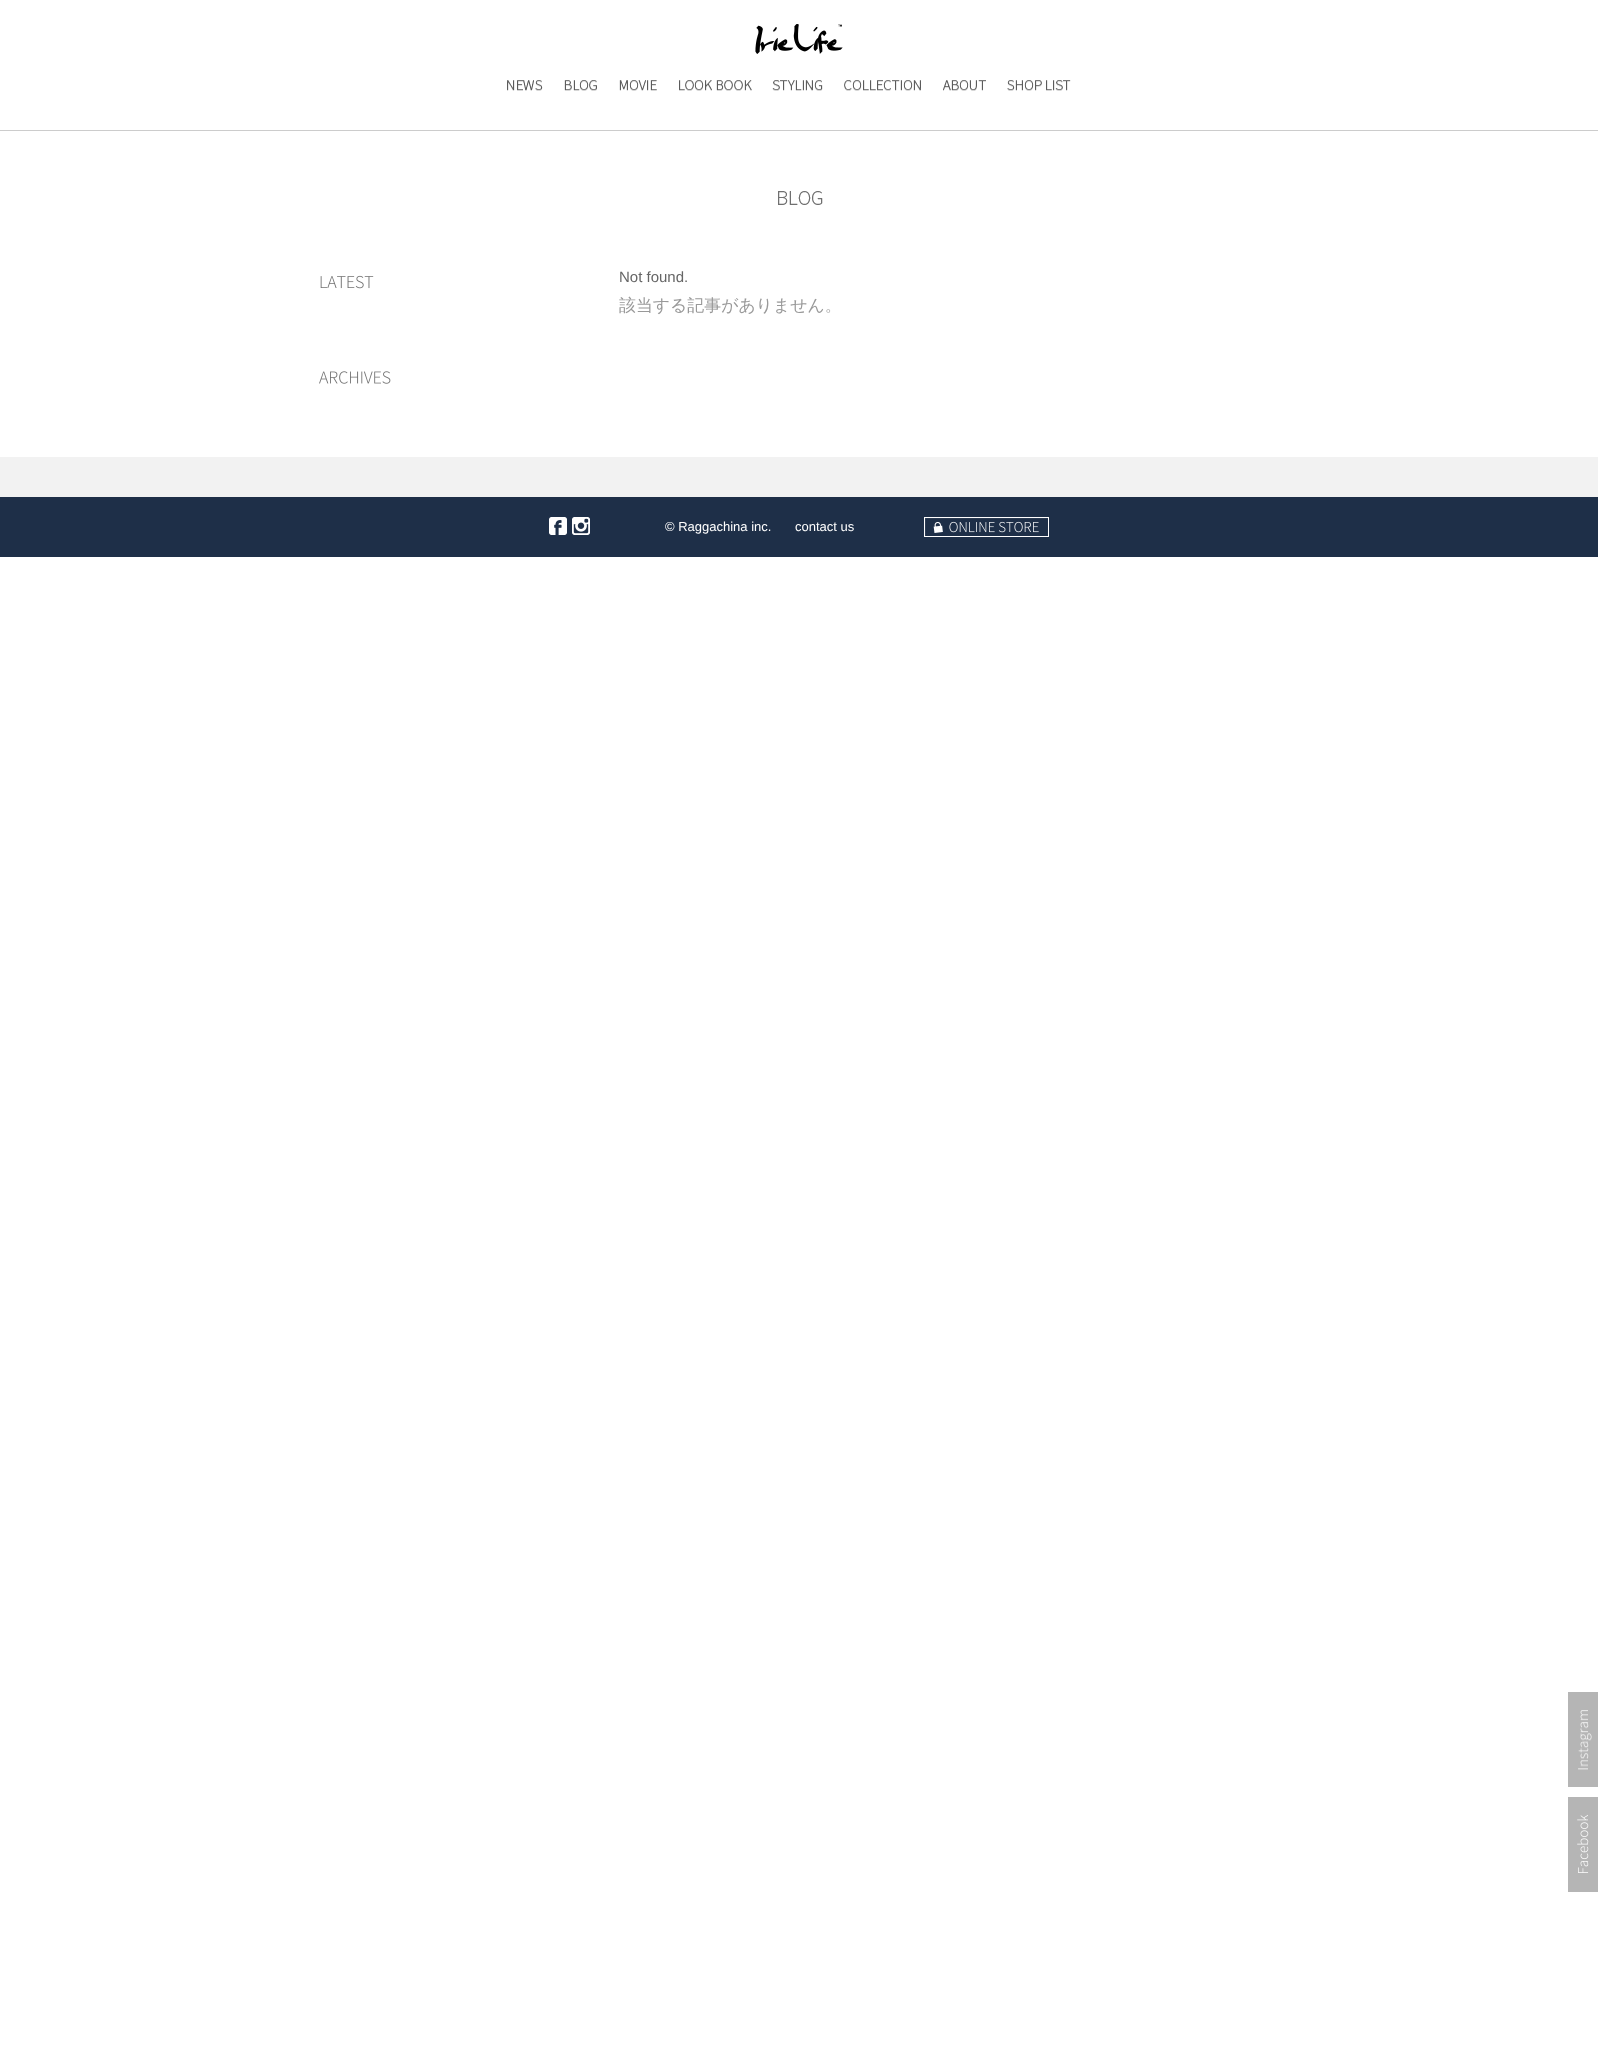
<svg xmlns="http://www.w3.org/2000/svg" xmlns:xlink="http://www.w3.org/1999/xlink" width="1598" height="2052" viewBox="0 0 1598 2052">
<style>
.cls-1{font:15px Liberation Sans;fill:#666666}
.cls-2{font:500 16.9px WenQuanYi Zen Hei;fill:#999999}
.cls-3{font:13px Liberation Sans;fill:#ffffff}
</style>
<rect width="100%" height="100%" fill="#ffffff"/>
<rect fill="#cccccc" x="0" y="130" width="1598" height="1"/>
<image xlink:href="image0.png" x="755" y="24" width="88" height="30"/>
<image xlink:href="image1.png" x="507" y="80" width="36" height="11"/>
<image xlink:href="image2.png" x="564" y="80" width="33" height="11"/>
<image xlink:href="image3.png" x="619" y="80" width="38" height="11"/>
<image xlink:href="image4.png" x="679" y="80" width="73" height="11"/>
<image xlink:href="image5.png" x="772" y="80" width="51" height="11"/>
<image xlink:href="image6.png" x="844" y="80" width="77" height="11"/>
<image xlink:href="image7.png" x="943" y="80" width="43" height="11"/>
<image xlink:href="image8.png" x="1007" y="80" width="64" height="11"/>
<image xlink:href="image9.png" x="778" y="191" width="45" height="14"/>
<image xlink:href="image10.png" x="320" y="275" width="54" height="14"/>
<image xlink:href="image11.png" x="319" y="371" width="72" height="13"/>
<rect fill="#f2f2f2" x="0" y="457" width="1598" height="40"/>
<rect fill="#1e2f48" x="0" y="497" width="1598" height="60"/>
<image xlink:href="image12.png" x="549" y="517" width="18" height="18"/>
<image xlink:href="image13.png" x="572" y="517" width="18" height="18"/>
<image xlink:href="image14.png" x="924" y="517" width="125" height="20"/>
<image xlink:href="image15.png" x="1568" y="1692" width="30" height="95"/>
<image xlink:href="image16.png" x="1568" y="1797" width="30" height="95"/>
<text class="cls-1" x="619" y="282">Not found.</text>
<text class="cls-2" x="619" y="311">該当する記事がありません。</text>
<text class="cls-3" x="665" y="531">© Raggachina inc.</text>
<text class="cls-3" x="795" y="531">contact us</text>
</svg>
